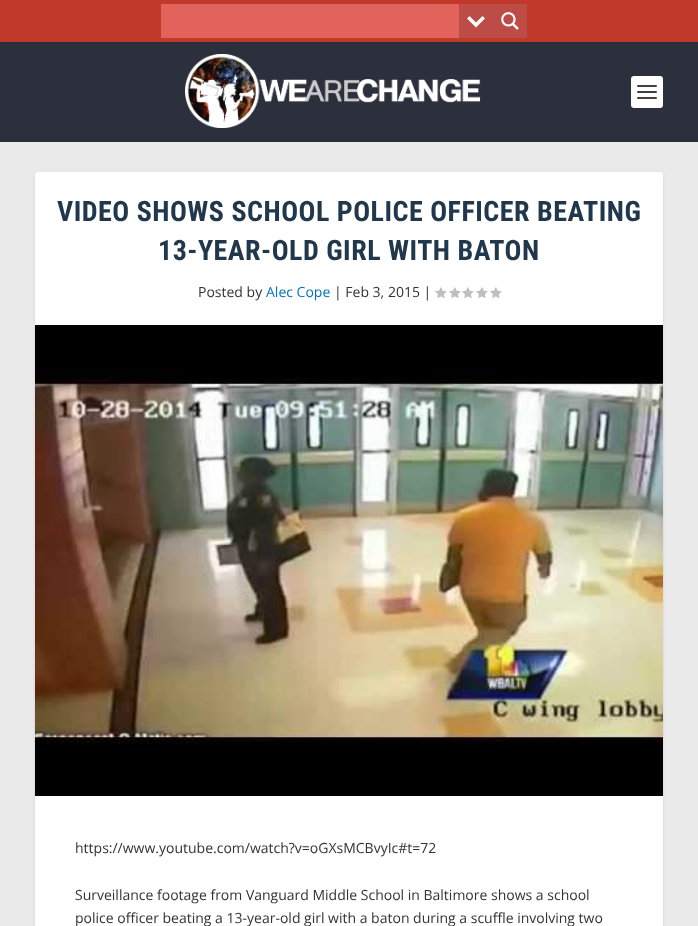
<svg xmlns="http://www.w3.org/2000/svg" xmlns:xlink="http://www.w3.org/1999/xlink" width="698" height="926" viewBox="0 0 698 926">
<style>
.cls-1{font:bold 28px Roboto Condensed;letter-spacing:0.5px;fill:#20374c}
.cls-2{font:14px Open Sans;fill:#333333}
.cls-3{font:14px Open Sans;fill:#0175bb}
</style>
<rect width="100%" height="100%" fill="#eaeaea"/>
<rect fill="#c0392b" x="0" y="0" width="698" height="42"/>
<rect fill="#e1635c" x="161" y="4" width="298" height="34"/>
<rect fill="#be4c46" x="459" y="4" width="68" height="34"/>
<path fill="#ffffff" d="M482.5 16L485 18.5L476 27.5L467 18.5L469.5 16L476 22.5Z"/>
<image xlink:href="image0.png" x="501" y="12" width="18" height="18"/>
<rect fill="#2c2f3c" x="0" y="42" width="698" height="100"/>
<image xlink:href="image1.png" x="185" y="54" width="296" height="74"/>
<rect fill="#ffffff" x="631" y="76" width="32" height="32" rx="3"/>
<rect fill="#404040" x="637" y="85" width="20" height="2" rx="1"/>
<rect fill="#404040" x="637" y="91" width="20" height="2" rx="1"/>
<rect fill="#404040" x="637" y="97" width="20" height="2" rx="1"/>
<rect fill="#000000" fill-opacity="0.1" filter="blur(1.5px)" x="35" y="173" width="628" height="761" rx="3"/>
<rect fill="#ffffff" x="35" y="172" width="628" height="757" rx="3"/>
<image xlink:href="image2.png" x="435" y="287" width="12" height="12"/>
<image xlink:href="image2.png" x="449" y="287" width="12" height="12"/>
<image xlink:href="image2.png" x="462" y="287" width="12" height="12"/>
<image xlink:href="image2.png" x="476" y="287" width="12" height="12"/>
<image xlink:href="image2.png" x="490" y="287" width="12" height="12"/>
<image xlink:href="image3.png" x="35" y="325" width="628" height="471"/>
<text class="cls-1" x="57" y="221">VIDEO SHOWS SCHOOL POLICE OFFICER BEATING</text>
<text class="cls-1" x="158" y="260">13-YEAR-OLD GIRL WITH BATON</text>
<text class="cls-2" x="198" y="297">Posted by</text>
<text class="cls-3" x="266" y="297">Alec Cope</text>
<text class="cls-2" x="334" y="297">| Feb 3, 2015 |</text>
<text class="cls-2" x="75" y="853">https://www.youtube.com/watch?v=oGXsMCBvyIc#t=72</text>
<text class="cls-2"><tspan x="75" y="900">Surveillance footage from Vanguard Middle School in Baltimore shows a school</tspan><tspan x="75" y="923">police officer beating a 13-year-old girl with a baton during a scuffle involving two</tspan></text>
</svg>
